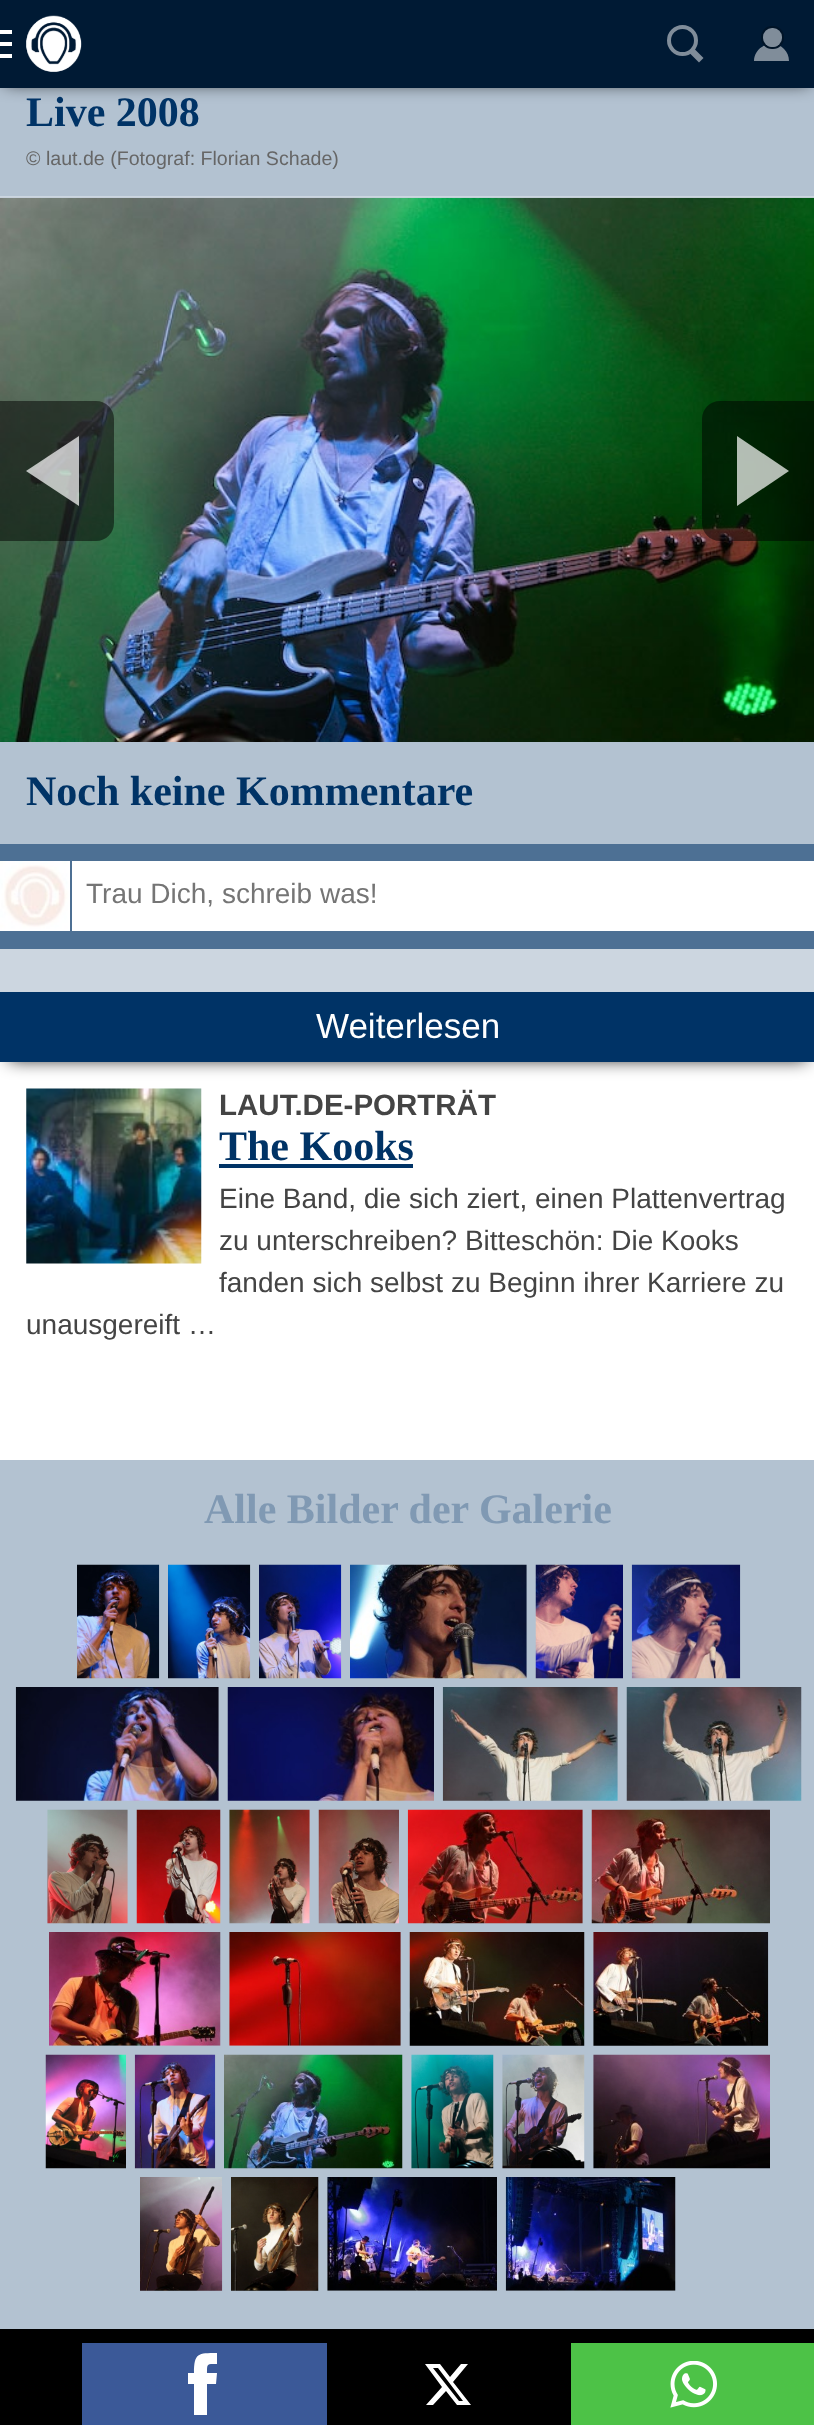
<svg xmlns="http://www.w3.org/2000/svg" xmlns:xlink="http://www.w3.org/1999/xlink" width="814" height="2425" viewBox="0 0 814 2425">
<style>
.cls-1{font:bold 42px Liberation Serif;fill:#003366}
.cls-2{font:19.6px Liberation Sans;fill:#666666}
.cls-3{font:28px Liberation Sans;fill:#757575}
.cls-4{font:35px Liberation Sans;fill:#ffffff}
.cls-5{font:bold 29.5px Liberation Sans;fill:#444444}
.cls-6{font:28px Liberation Sans;fill:#444444}
.cls-7{font:bold 42px Liberation Serif;fill:#8099b3}
</style>
<defs>
<clipPath id="clip1"><rect x="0" y="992" width="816" height="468"/></clipPath>
</defs>
<rect width="100%" height="100%" fill="#ccd6e0"/>
<rect fill="#b3c2d1" x="0" y="88" width="814" height="108"/>
<rect fill="#000000" filter="blur(9px)" x="5" y="5" width="805" height="77"/>
<rect fill="#001a34" x="0" y="0" width="814" height="88"/>
<image xlink:href="image0.png" x="26" y="15" width="56" height="57"/>
<rect fill="#ffffff" x="0" y="30" width="12" height="4"/>
<rect fill="#ffffff" x="0" y="54" width="12" height="4"/>
<rect fill="#ffffff" x="0" y="42" width="12" height="4"/>
<path fill="#808d9a" d="M703.5 58L699 62.5L689 52.5L693.5 48Z"/>
<circle fill="none" stroke="#808d9a" stroke-width="4" cx="682.5" cy="40.5" r="13.5"/>
<path fill="#808d9a" fill-rule="evenodd" d="M772 44C781.5 44 789 51.5 789 61H754C754 51.5 762 44 772 44ZM772 61Z"/>
<rect fill="none" stroke="#001427" stroke-width="2" x="762" y="27" width="21" height="21" rx="10"/>
<rect fill="#808d9a" x="763" y="28" width="19" height="19" rx="9"/>
<image xlink:href="image1.png" x="0" y="197" width="814" height="545"/>
<path fill="#000000" fill-opacity="0.5" d="M0 401H96C106 401 114 409 114 419V523C114 533 106 541 96 541H0Z"/>
<path fill="#ffffff" fill-opacity="0.7" d="M79 436V506L26 471Z"/>
<path fill="#000000" fill-opacity="0.5" d="M720 401H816V541H720C710 541 702 533 702 523V419C702 409 710 401 720 401Z"/>
<path fill="#ffffff" fill-opacity="0.7" d="M737 506V436L789 471Z"/>
<rect fill="#b3c2d1" x="0" y="742" width="814" height="102"/>
<rect fill="#4d7094" x="0" y="844" width="814" height="105"/>
<image xlink:href="image2.png" x="0" y="861" width="70" height="70"/>
<rect fill="#ffffff" x="72" y="861" width="742" height="70"/>
<rect fill="#ffffff" x="0" y="1062" width="814" height="398"/>
<g clip-path="url(#clip1)">
<rect fill="#000000" filter="blur(9px)" x="9" y="1006" width="798" height="53"/>
</g>
<rect fill="#003366" x="0" y="992" width="814" height="70"/>
<image xlink:href="image3.png" x="26" y="1088" width="176" height="176"/>
<rect fill="#003366" x="219" y="1164" width="194" height="4"/>
<rect fill="#b3c2d1" x="0" y="1460" width="814" height="869"/>
<image xlink:href="image4.png" x="77" y="1564" width="83" height="115"/>
<image xlink:href="image5.png" x="168" y="1564" width="83" height="115"/>
<image xlink:href="image6.png" x="259" y="1564" width="83" height="115"/>
<image xlink:href="image7.png" x="350" y="1564" width="177" height="115"/>
<image xlink:href="image8.png" x="535" y="1564" width="88" height="115"/>
<image xlink:href="image9.png" x="631" y="1564" width="110" height="115"/>
<image xlink:href="image10.png" x="15" y="1687" width="204" height="114"/>
<image xlink:href="image11.png" x="227" y="1687" width="207" height="114"/>
<image xlink:href="image12.png" x="442" y="1687" width="176" height="114"/>
<image xlink:href="image13.png" x="626" y="1687" width="176" height="114"/>
<image xlink:href="image14.png" x="47" y="1809" width="81" height="115"/>
<image xlink:href="image15.png" x="136" y="1809" width="85" height="115"/>
<image xlink:href="image16.png" x="229" y="1809" width="81" height="115"/>
<image xlink:href="image17.png" x="318" y="1809" width="81" height="115"/>
<image xlink:href="image18.png" x="407" y="1809" width="176" height="115"/>
<image xlink:href="image19.png" x="591" y="1809" width="179" height="115"/>
<image xlink:href="image20.png" x="49" y="1932" width="172" height="114"/>
<image xlink:href="image21.png" x="229" y="1932" width="172" height="114"/>
<image xlink:href="image22.png" x="409" y="1932" width="176" height="114"/>
<image xlink:href="image23.png" x="593" y="1932" width="176" height="114"/>
<image xlink:href="image24.png" x="45" y="2054" width="81" height="115"/>
<image xlink:href="image25.png" x="134" y="2054" width="82" height="115"/>
<image xlink:href="image26.png" x="224" y="2054" width="179" height="115"/>
<image xlink:href="image27.png" x="411" y="2054" width="83" height="115"/>
<image xlink:href="image28.png" x="502" y="2054" width="83" height="115"/>
<image xlink:href="image29.png" x="593" y="2054" width="177" height="115"/>
<image xlink:href="image30.png" x="140" y="2177" width="83" height="114"/>
<image xlink:href="image31.png" x="231" y="2177" width="88" height="114"/>
<image xlink:href="image32.png" x="327" y="2177" width="170" height="114"/>
<image xlink:href="image33.png" x="505" y="2177" width="171" height="114"/>
<rect fill="#000000" x="0" y="2329" width="814" height="96"/>
<rect fill="#3b5998" x="82" y="2343" width="245" height="82"/>
<path fill="#ffffff" fill-rule="evenodd" d="M207 2415V2384H216L217 2373H207C207 2363 207 2364 217 2364V2353C198 2353 194 2353 194 2373H188V2384H194V2415Z"/>
<path fill="#ffffff" d="M461 2364H468L453 2382L471 2405H457L446 2391L433 2405H426L442 2387L425 2364H440L450 2377ZM459 2401H463L438 2368H433Z"/>
<rect fill="#4dc247" x="571" y="2343" width="243" height="82"/>
<image xlink:href="image34.png" x="670" y="2361" width="47" height="47"/>
<text class="cls-1" x="26" y="126">Live 2008</text>
<text class="cls-2" x="26" y="165">© laut.de (Fotograf: Florian Schade)</text>
<text class="cls-1" x="26" y="805">Noch keine Kommentare</text>
<text class="cls-3" x="86" y="903">Trau Dich, schreib was!</text>
<text class="cls-4" x="316" y="1038">Weiterlesen</text>
<text class="cls-5" x="219" y="1115">LAUT.DE-PORTRÄT</text>
<text class="cls-1" x="219" y="1160">The Kooks</text>
<text class="cls-6"><tspan x="219" y="1208">Eine Band, die sich ziert, einen Plattenvertrag</tspan><tspan x="219" y="1250">zu unterschreiben? Bitteschön: Die Kooks</tspan><tspan x="219" y="1292">fanden sich selbst zu Beginn ihrer Karriere zu</tspan></text>
<text class="cls-6" x="26" y="1334">unausgereift …</text>
<text class="cls-7" x="204" y="1523">Alle Bilder der Galerie</text>
</svg>
